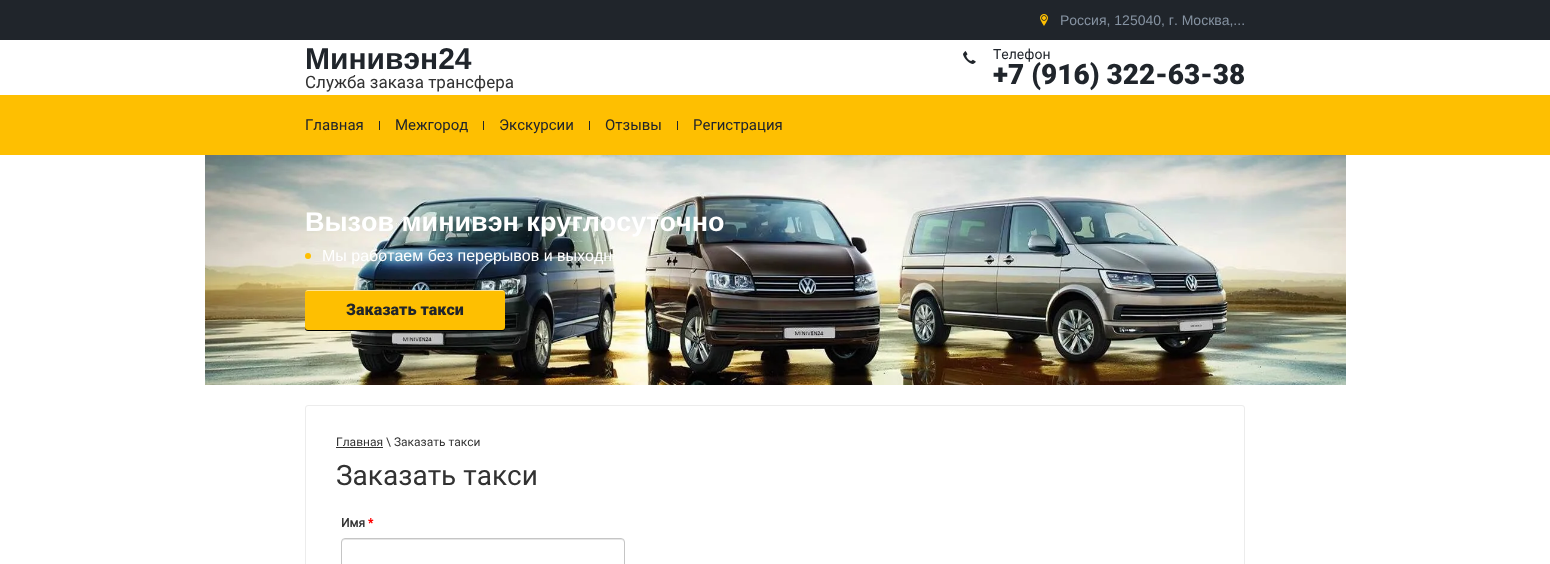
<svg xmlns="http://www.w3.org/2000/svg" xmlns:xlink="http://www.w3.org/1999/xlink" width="1550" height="564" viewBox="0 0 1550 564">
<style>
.cls-1{font:14px Arimo;fill:#8693a2}
.cls-2{font:bold 30px Arimo;fill:#20252b}
.cls-3{font:17px Roboto;fill:#323232}
.cls-4{font:14px Roboto;fill:#20252b}
.cls-5{font:900 28px Roboto;fill:#20252b}
.cls-6{font:15px Roboto;fill:#20252b}
.cls-7{font:bold 27px Arimo;fill:#ffffff}
.cls-8{font:16px Arimo;fill:#ffffff}
.cls-9{font:900 16px Roboto;fill:#20252b}
.cls-10{font:12px Roboto;fill:#323232}
.cls-11{font:28px Roboto;fill:#323232}
.cls-12{font:bold 12px Roboto;fill:#323232}
.cls-13{font:bold 12px Roboto;fill:#ff0000}
</style>
<rect width="100%" height="100%" fill="#ffffff"/>
<rect fill="#20252b" x="0" y="0" width="1550" height="40"/>
<image xlink:href="image0.png" x="1040" y="14" width="8" height="12"/>
<image xlink:href="image1.png" x="963" y="51" width="13" height="13"/>
<rect fill="#febf01" x="0" y="95" width="1550" height="60"/>
<rect fill="#20252b" x="379" y="121" width="1" height="9"/>
<rect fill="#20252b" x="483" y="121" width="1" height="9"/>
<rect fill="#20252b" x="589" y="121" width="1" height="9"/>
<rect fill="#20252b" x="677" y="121" width="1" height="9"/>
<image xlink:href="image2.png" x="205" y="155" width="1141" height="230"/>
<circle fill="#febf01" cx="308" cy="256" r="3"/>
<rect fill="#000000" filter="blur(0.5px)" x="305" y="291" width="200" height="40" rx="3"/>
<rect fill="#febf01" x="305" y="290" width="200" height="40" rx="3"/>
<path fill="#ffffff" fill-opacity="0.6" d="M308 291H502C504 291 505 292 505 294C505 292 504 290 502 290H308C306 290 305 292 305 294C305 292 306 291 308 291Z"/>
<rect fill="none" stroke="#ececec" x="305.5" y="405.5" width="939" height="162" rx="2.5"/>
<rect fill="#323232" x="336" y="447" width="47" height="1"/>
<path fill="#e6e6e6" d="M345 540H621C623 540 624 541 624 543V542C624 540 623 539 621 539H345C343 539 342 540 342 542V543C342 541 343 540 345 540Z"/>
<rect fill="none" stroke="#c5c5c5" x="341.5" y="538.5" width="283" height="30" rx="3.5"/>
<text class="cls-1" x="1060" y="25">Россия, 125040, г. Москва,...</text>
<text class="cls-2" x="305" y="69">Минивэн24</text>
<text class="cls-3" x="305" y="88">Служба заказа трансфера</text>
<text class="cls-4" x="993" y="59">Телефон</text>
<text class="cls-5" x="993" y="84">+7 (916) 322-63-38</text>
<text class="cls-6" x="305" y="130">Главная</text>
<text class="cls-6" x="395" y="130">Межгород</text>
<text class="cls-6" x="499" y="130">Экскурсии</text>
<text class="cls-6" x="605" y="130">Отзывы</text>
<text class="cls-6" x="693" y="130">Регистрация</text>
<text class="cls-7" x="305" y="231">Вызов минивэн круглосуточно</text>
<text class="cls-8" x="322" y="261">Мы работаем без перерывов и выходн</text>
<text class="cls-9" x="346" y="315">Заказать такси</text>
<text class="cls-10" x="336" y="446">Главная \ Заказать такси</text>
<text class="cls-11" x="336" y="485">Заказать такси</text>
<text class="cls-12" x="341" y="527">Имя</text>
<text class="cls-13" x="368" y="527">*</text>
</svg>
